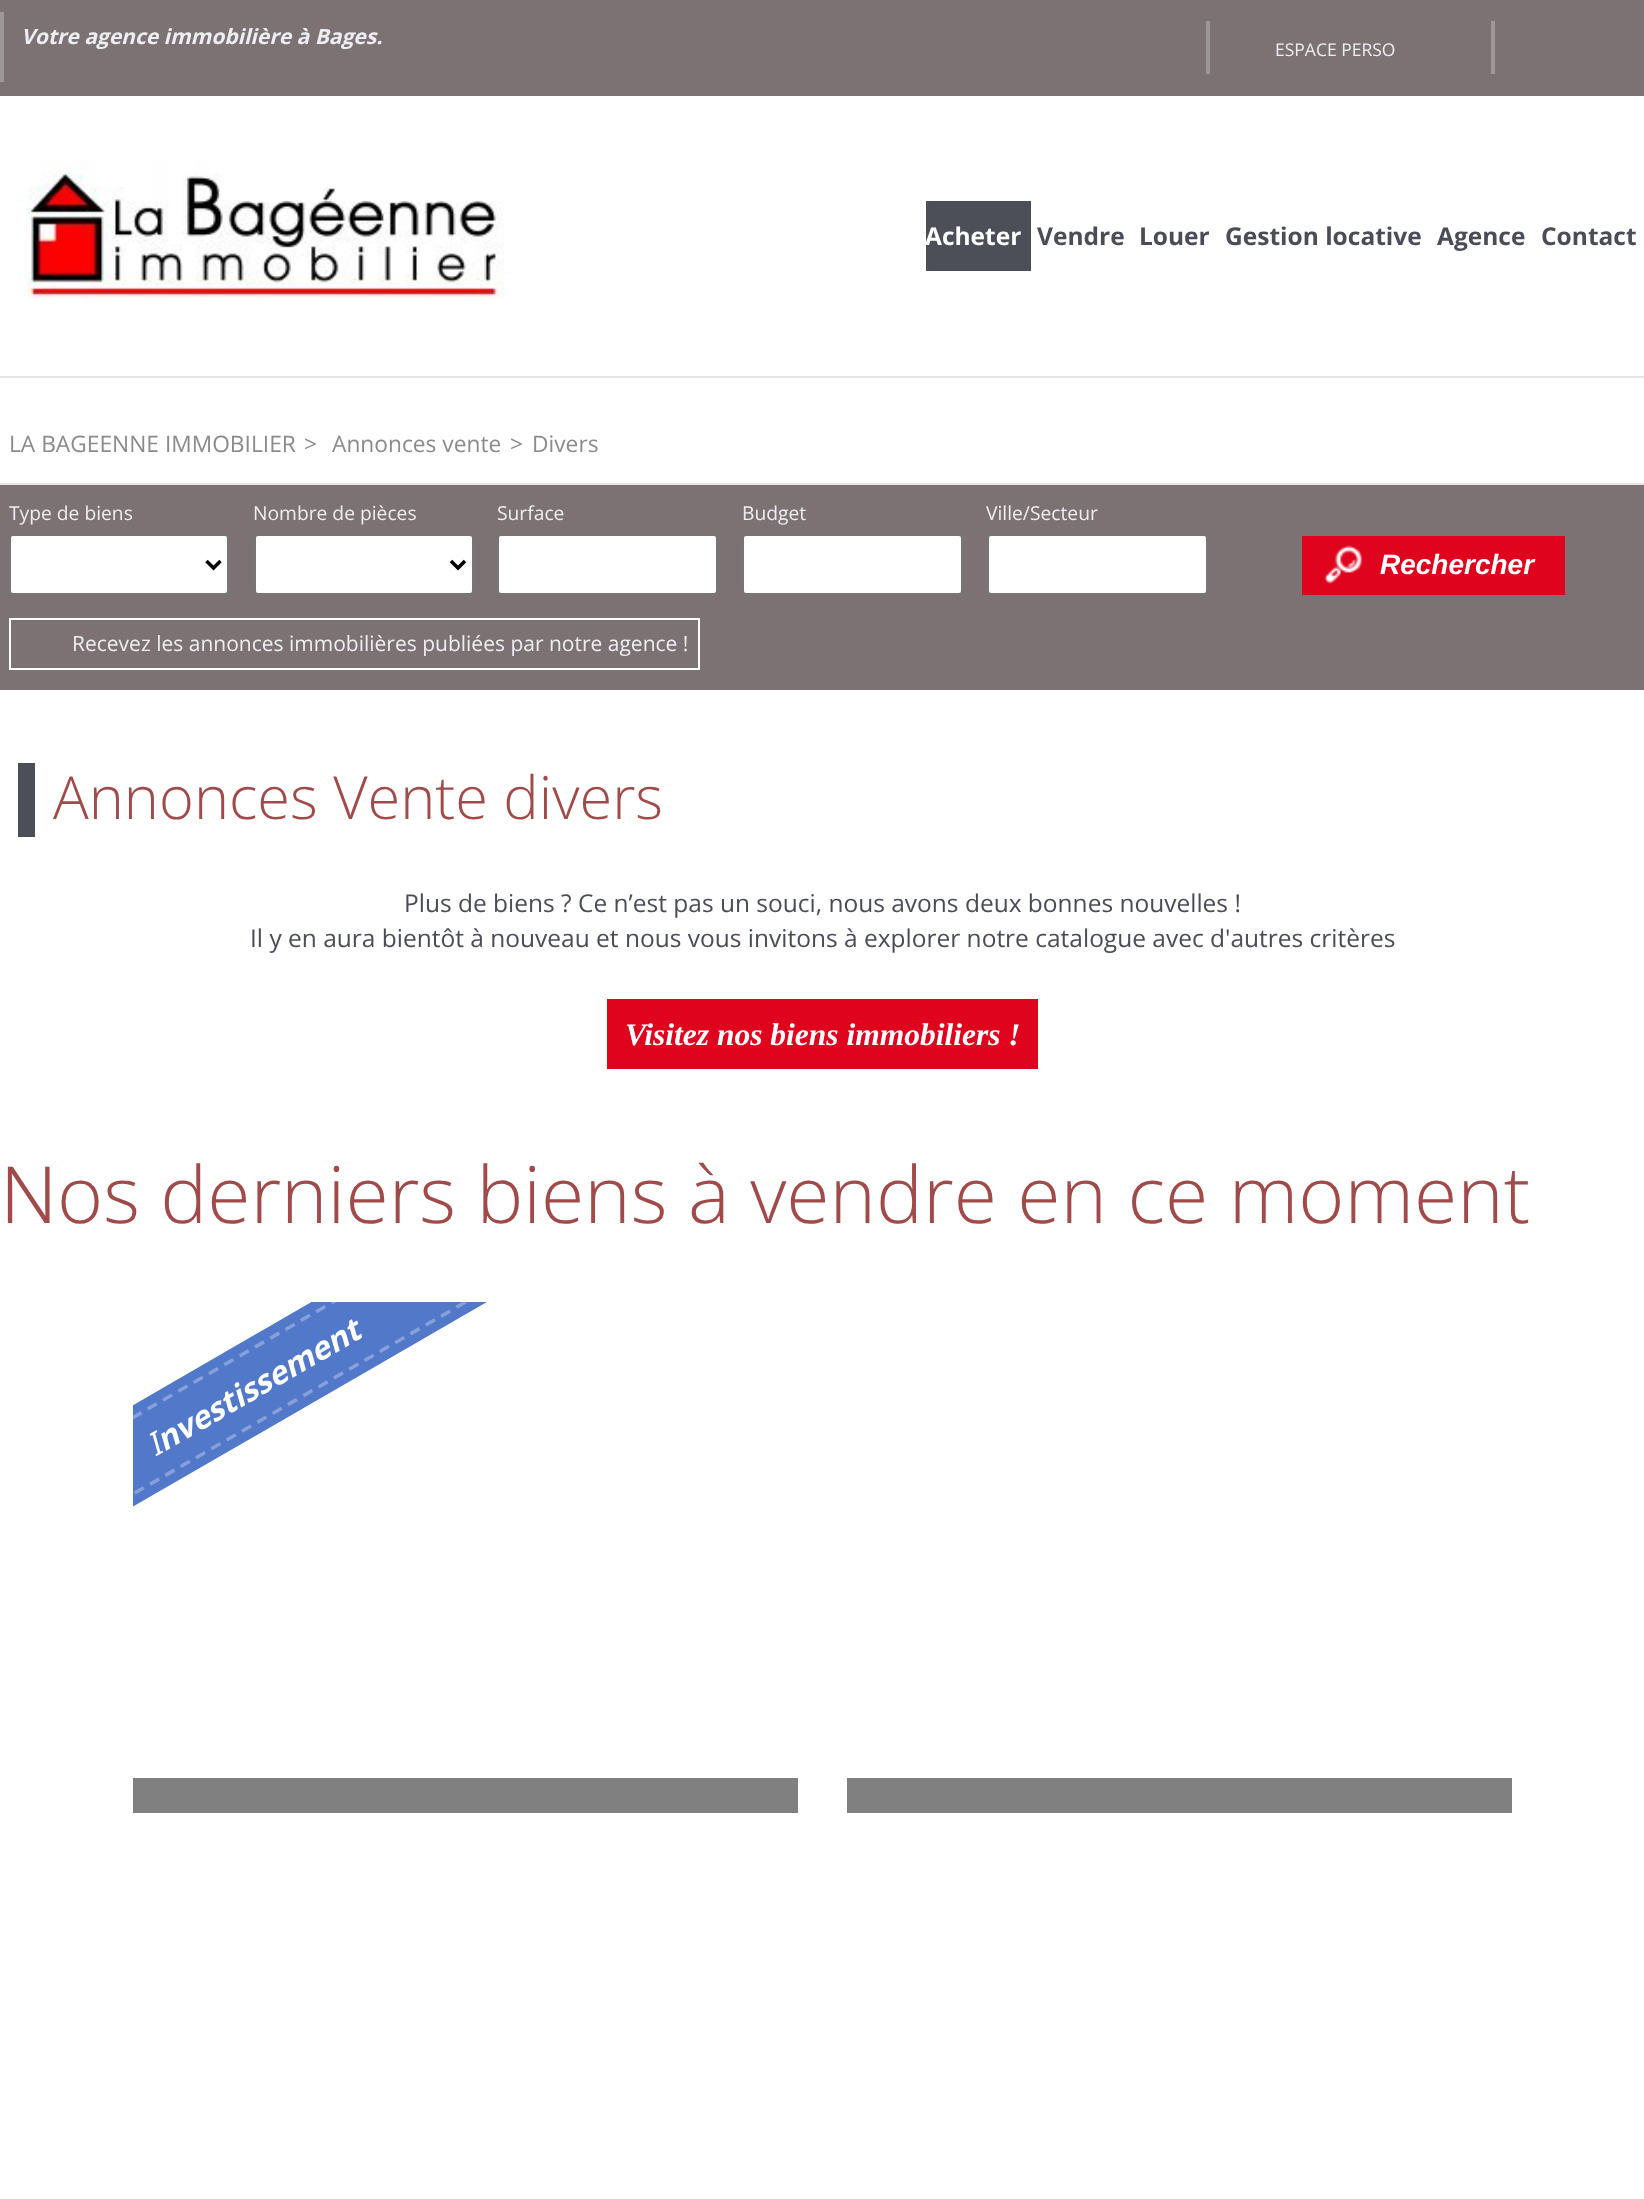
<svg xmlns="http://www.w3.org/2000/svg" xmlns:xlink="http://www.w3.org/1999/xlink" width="1644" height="2199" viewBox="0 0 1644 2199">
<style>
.cls-1{font:italic bold 21px Open Sans;fill:#eeeef2}
.cls-2{font:17.5px Open Sans;fill:#eeeef2}
.cls-3{font:bold 24.5px Open Sans;fill:#ffffff}
.cls-4{font:bold 24.5px Open Sans;fill:#4a4d57}
.cls-5{font:22.75px Open Sans;fill:#8b8b8b}
.cls-6{font:19.25px Open Sans;fill:#eeeef2}
.cls-7{font:italic bold 28px Liberation Sans;fill:#ffffff}
.cls-8{font:21px Open Sans;fill:#eeeef2}
.cls-9{font:300 59.5px Open Sans;fill:#a04a4a}
.cls-10{font:24.5px Open Sans;fill:#4a4d57}
.cls-11{font:italic bold 31.5px Liberation Serif;fill:#ffffff}
.cls-12{font:300 78.75px Noto Sans;fill:#a04a4a}
.cls-13{font:300 78.75px Open Sans;fill:#a04a4a}
.cls-14{font:italic 31.5px Noto Sans;fill:#ffffff}
.cls-15{font:italic bold 31.5px Open Sans;fill:#ffffff}
</style>
<defs>
<clipPath id="clip1"><rect x="133" y="1302" width="665" height="511"/></clipPath>
</defs>
<rect width="100%" height="100%" fill="#ffffff"/>
<rect fill="#7c7273" x="0" y="0" width="1644" height="96"/>
<rect fill="#9e9799" x="0" y="12" width="4" height="70"/>
<rect fill="#9e9799" x="1491" y="21" width="4" height="53"/>
<rect fill="#9e9799" x="1206" y="21" width="4" height="53"/>
<rect fill="#e6e6e6" x="0" y="376" width="1644" height="2"/>
<image xlink:href="image0.png" x="26" y="159" width="479" height="141"/>
<rect fill="#4c4f57" x="926" y="201" width="105" height="70"/>
<rect fill="#e6e6e6" x="0" y="483" width="1644" height="2"/>
<rect fill="#7c7273" x="0" y="485" width="1644" height="205"/>
<rect fill="#ffffff" stroke="#767676" stroke-width="2" x="10" y="535" width="218" height="59" rx="3"/>
<path fill="none" stroke="#000000" stroke-width="3.5" d="M206.5 561L213.5 568L220.5 561"/>
<rect fill="#ffffff" stroke="#767676" stroke-width="2" x="255" y="535" width="218" height="59" rx="3"/>
<path fill="none" stroke="#000000" stroke-width="3.5" d="M451 561L458 568L465 561"/>
<rect fill="#ffffff" stroke="#767676" stroke-width="2" x="498" y="535" width="219" height="59" rx="3"/>
<rect fill="#ffffff" stroke="#767676" stroke-width="2" x="743" y="535" width="219" height="59" rx="3"/>
<rect fill="#ffffff" stroke="#767676" stroke-width="2" x="988" y="535" width="219" height="59" rx="3"/>
<rect fill="#df031e" x="1302" y="536" width="263" height="59"/>
<image xlink:href="image1.png" x="1324" y="545" width="39" height="39"/>
<rect fill="none" stroke="#ffffff" stroke-width="2" x="10" y="619" width="689" height="50"/>
<rect fill="#4c4f57" x="18" y="763" width="17" height="74"/>
<rect fill="#df031e" x="607" y="999" width="431" height="70"/>
<g clip-path="url(#clip1)">
<path fill="#5278ca" d="M-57 1515L519 1182L563 1258L-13 1591Z"/>
</g>
<rect fill="#808080" x="133" y="1778" width="665" height="35"/>
<rect fill="#808080" x="847" y="1778" width="665" height="35"/>
<text class="cls-1" x="21" y="44">Votre agence immobilière à Bages.</text>
<text class="cls-2" x="1275" y="56">ESPACE PERSO</text>
<text class="cls-3" x="925" y="245">Acheter</text>
<text class="cls-4" x="1037" y="245">Vendre</text>
<text class="cls-4" x="1139" y="245">Louer</text>
<text class="cls-4" x="1225" y="245">Gestion locative</text>
<text class="cls-4" x="1437" y="245">Agence</text>
<text class="cls-4" x="1541" y="245">Contact</text>
<text class="cls-5" x="9" y="452">LA BAGEENNE IMMOBILIER</text>
<text class="cls-5" x="304" y="452">&gt;</text>
<text class="cls-5" x="332" y="452">Annonces vente</text>
<text class="cls-5" x="510" y="452">&gt;</text>
<text class="cls-5" x="532" y="452">Divers</text>
<text class="cls-6" x="9" y="520">Type de biens</text>
<text class="cls-6" x="253" y="520">Nombre de pièces</text>
<text class="cls-6" x="497" y="520">Surface</text>
<text class="cls-6" x="742" y="520">Budget</text>
<text class="cls-6" x="986" y="520">Ville/Secteur</text>
<text class="cls-7" x="1380" y="574">Rechercher</text>
<text class="cls-8" x="72" y="651">Recevez les annonces immobilières publiées par notre agence !</text>
<text class="cls-9" x="53" y="819">Annonces Vente divers</text>
<text class="cls-10" x="404" y="912">Plus de biens ? Ce n’est pas un souci, nous avons deux bonnes nouvelles !</text>
<text class="cls-10" x="250" y="947">Il y en aura bientôt à nouveau et nous vous invitons à explorer notre catalogue avec d'autres critères</text>
<text class="cls-11" x="625" y="1045">Visitez nos biens immobiliers !</text>
<text class="cls-12" x="0" y="1223">N</text>
<text class="cls-13" x="57" y="1223">os derniers biens à vendre en ce moment</text>
<text class="cls-14" x="155" y="1457" transform="rotate(-30 155 1457)">I</text>
<text class="cls-15" x="164" y="1452" transform="rotate(-30 164 1452)">nvestissement</text>
<g clip-path="url(#clip1)">
<path fill="none" stroke="#86a1da" stroke-width="3.5" stroke-dasharray="10.5 7.19" d="M-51.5 1524L524.5 1191.5"/>
<path fill="none" stroke="#86a1da" stroke-width="3.5" stroke-dasharray="10.5 7.19" d="M-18.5 1581.5L557.5 1249"/>
</g>
</svg>
